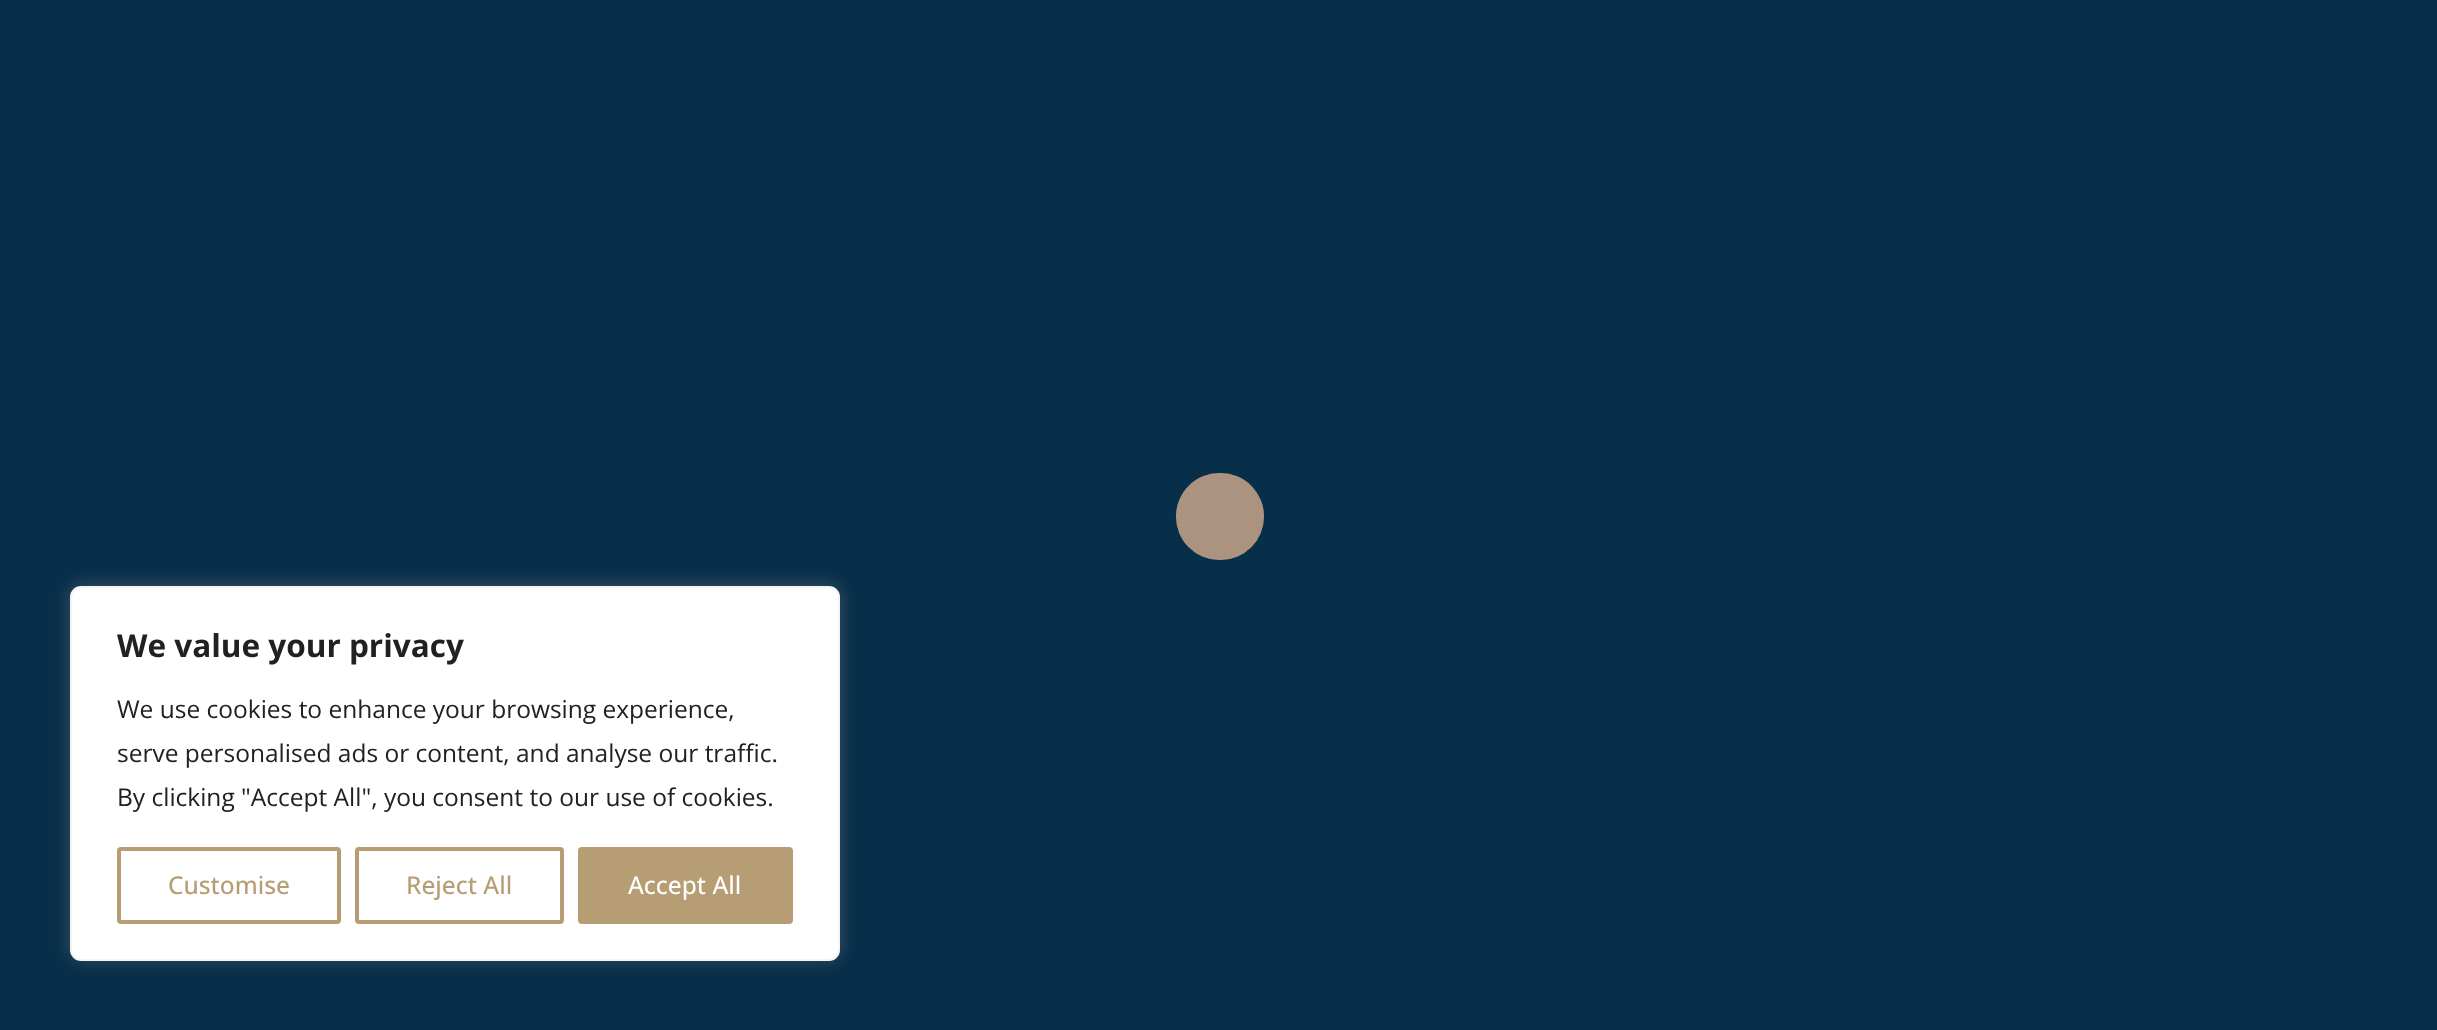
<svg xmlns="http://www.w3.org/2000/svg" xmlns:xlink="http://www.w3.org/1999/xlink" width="2437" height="1030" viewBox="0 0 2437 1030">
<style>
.cls-1{font:bold 31.5px Open Sans;fill:#212121}
.cls-2{font:24.5px Open Sans;fill:#212121}
.cls-3{font:500 24.5px Open Sans;fill:#b69d74}
.cls-4{font:500 24.5px Open Sans;fill:#ffffff}
</style>
<rect width="100%" height="100%" fill="#082f49"/>
<rect fill="#7e7671" x="1176" y="473" width="88" height="87" rx="43.5"/>
<rect fill="#cca68b" fill-opacity="0.6" x="1176" y="473" width="88" height="87" rx="43.5"/>
<rect fill="#acabab" fill-opacity="0.3" filter="blur(9px)" x="70" y="585" width="770" height="374" rx="11"/>
<rect fill="#ffffff" stroke="#f4f4f4" stroke-width="2" x="71" y="587" width="768" height="373" rx="10"/>
<rect fill="none" stroke="#b69d74" stroke-width="4" x="119" y="849" width="220" height="73" rx="2"/>
<rect fill="none" stroke="#b69d74" stroke-width="4" x="357" y="849" width="205" height="73" rx="2"/>
<rect fill="#b69d74" stroke="#b69d74" stroke-width="4" x="580" y="849" width="211" height="73" rx="2"/>
<text class="cls-1" x="117" y="657">We value your privacy</text>
<text class="cls-2"><tspan x="117" y="718">We use cookies to enhance your browsing experience,</tspan><tspan x="117" y="762">serve personalised ads or content, and analyse our traffic.</tspan><tspan x="117" y="806">By clicking "Accept All", you consent to our use of cookies.</tspan></text>
<text class="cls-3" x="168" y="894">Customise</text>
<text class="cls-3" x="406" y="894">Reject All</text>
<text class="cls-4" x="628" y="894">Accept All</text>
</svg>
